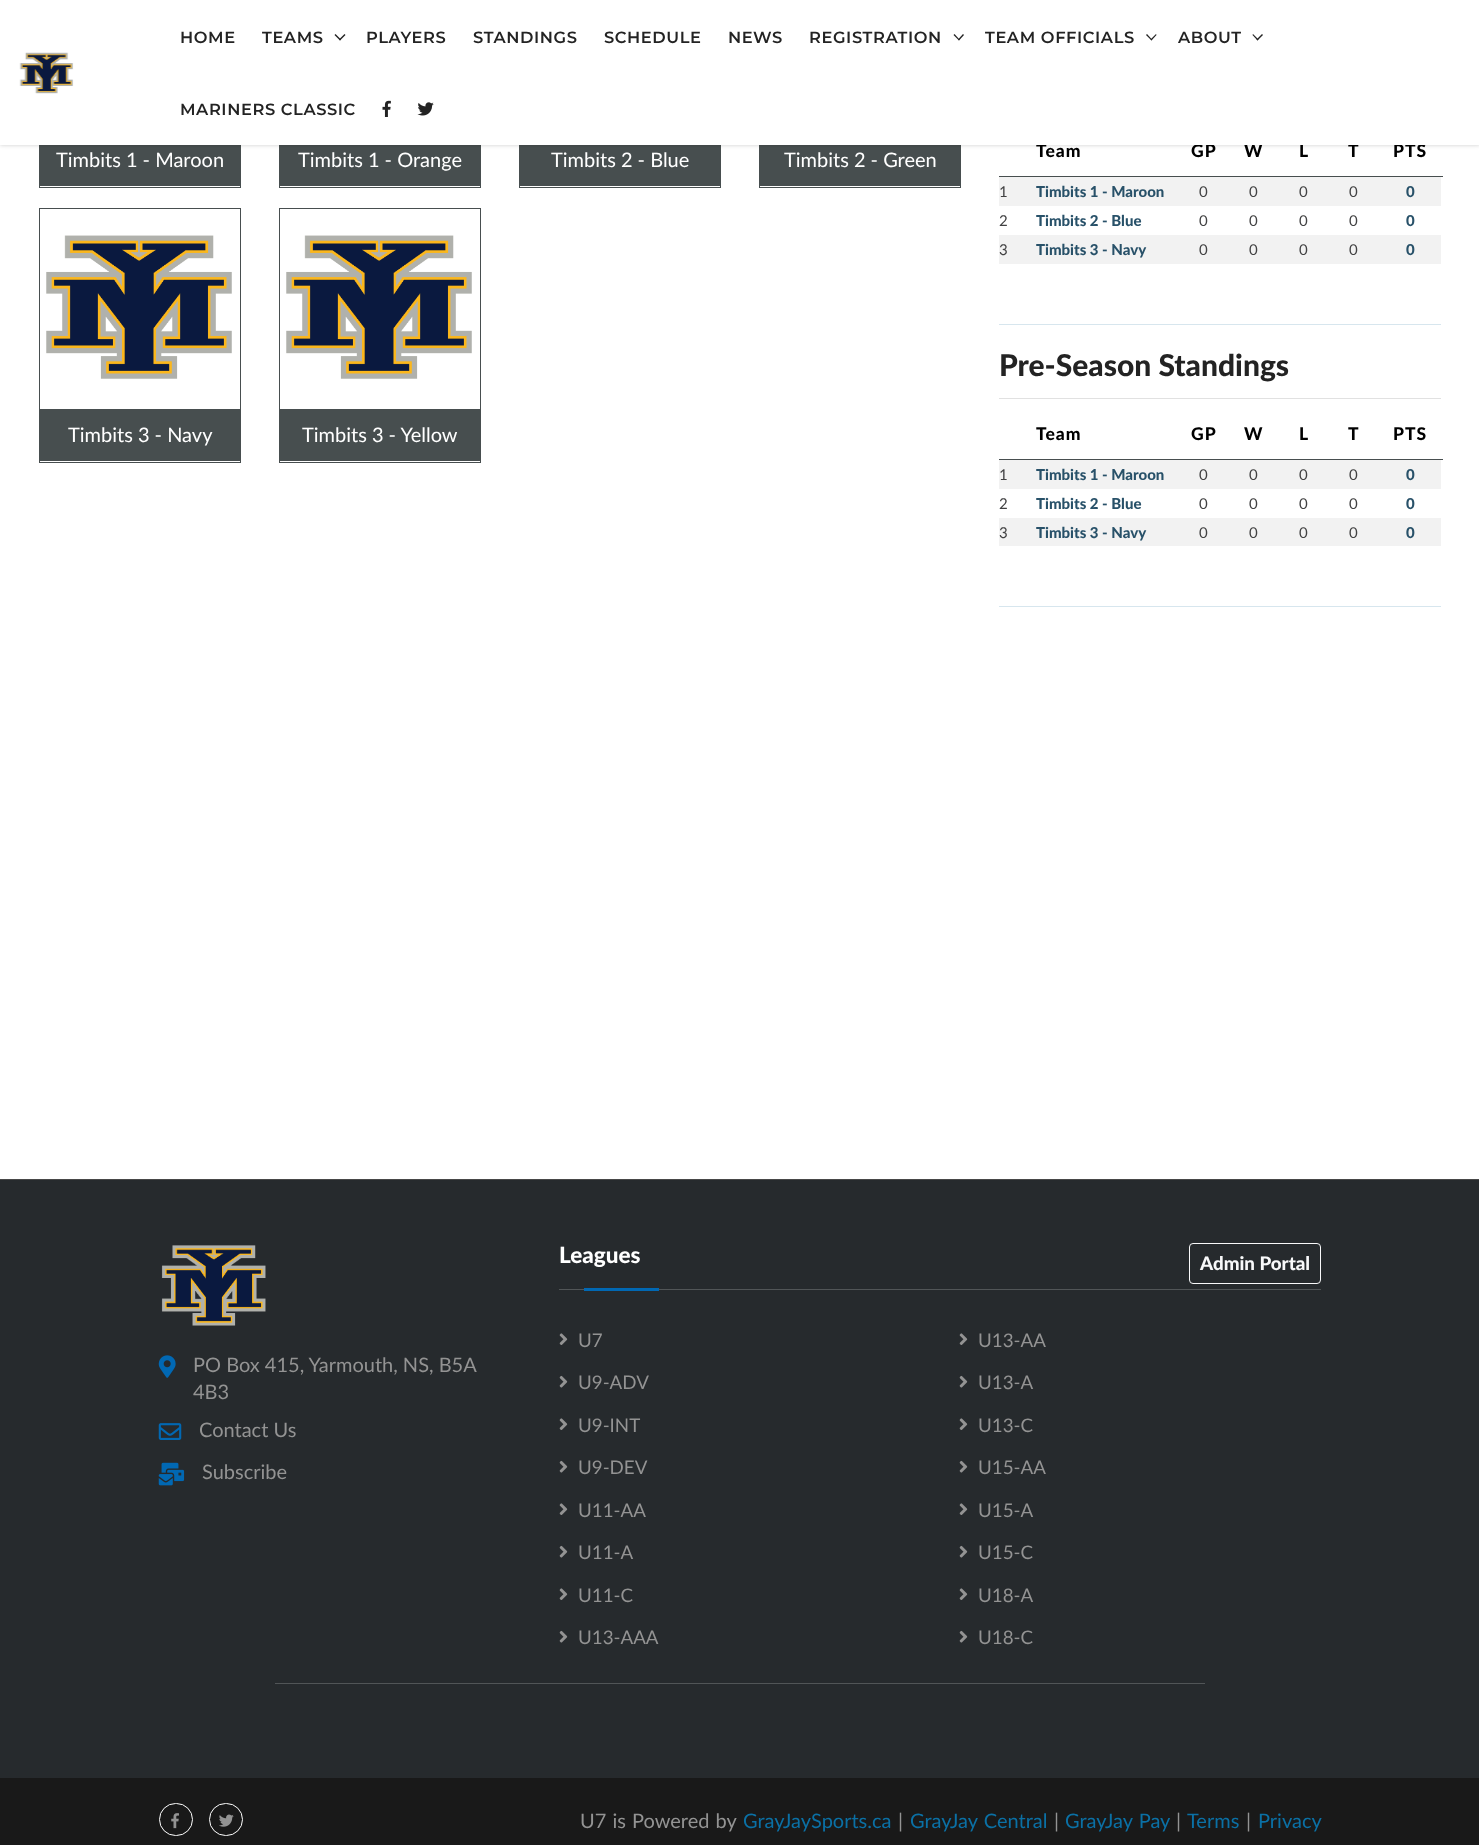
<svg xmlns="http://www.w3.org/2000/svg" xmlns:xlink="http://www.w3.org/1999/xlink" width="1479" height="1845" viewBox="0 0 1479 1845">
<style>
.cls-1{font:20px Lato;fill:#ffffff}
.cls-2{font:900 17.5px Lato;letter-spacing:1px;fill:#000000}
.cls-3{font:600 16.25px Montserrat;letter-spacing:0.6px;fill:#232323}
.cls-4{font:15px Lato;fill:#414142}
.cls-5{font:900 15px Lato;fill:#285169}
.cls-6{font:900 30px Lato;fill:#232323}
.cls-7{font:20px Lato;fill:#939393}
.cls-8{font:900 22.5px Lato;fill:#ffffff}
.cls-9{font:900 18.75px Lato;fill:#f8f9fa}
.cls-10{font:18.75px Lato;fill:#939393}
.cls-11{font:20px Lato;fill:#0b70a5}
</style>
<rect width="100%" height="100%" fill="#ffffff"/>
<rect fill="none" stroke="#474e4f" x="39.5" y="-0.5" width="201" height="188"/>
<rect fill="#474e4f" x="40" y="145" width="200" height="41"/>
<rect fill="none" stroke="#474e4f" x="279.5" y="-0.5" width="201" height="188"/>
<rect fill="#474e4f" x="280" y="145" width="200" height="41"/>
<rect fill="none" stroke="#474e4f" x="519.5" y="-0.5" width="201" height="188"/>
<rect fill="#474e4f" x="520" y="145" width="200" height="41"/>
<rect fill="none" stroke="#474e4f" x="759.5" y="-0.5" width="201" height="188"/>
<rect fill="#474e4f" x="760" y="145" width="200" height="41"/>
<rect fill="#000000" fill-opacity="0.2" filter="blur(2px)" x="0" y="0" width="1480" height="145"/>
<rect fill="none" stroke="#474e4f" x="39.5" y="208.5" width="201" height="254"/>
<image xlink:href="image3.png" x="46" y="235" width="186" height="144"/>
<rect fill="#474e4f" x="40" y="409" width="200" height="52"/>
<rect fill="none" stroke="#474e4f" x="279.5" y="208.5" width="201" height="254"/>
<image xlink:href="image4.png" x="286" y="235" width="186" height="144"/>
<rect fill="#474e4f" x="280" y="409" width="200" height="52"/>
<rect fill="#474e4f" x="999" y="176" width="444" height="1"/>
<rect fill="#f2f2f2" x="999" y="177" width="442" height="29"/>
<rect fill="#f2f2f2" x="999" y="235" width="442" height="29"/>
<rect fill="#d7e6ee" x="999" y="324" width="442" height="1"/>
<rect fill="#e1e1e1" x="999" y="398" width="442" height="1"/>
<rect fill="#474e4f" x="999" y="459" width="444" height="1"/>
<rect fill="#f2f2f2" x="999" y="460" width="442" height="29"/>
<rect fill="#f2f2f2" x="999" y="518" width="442" height="28"/>
<rect fill="#d7e6ee" x="999" y="606" width="442" height="1"/>
<rect fill="#262a2d" x="0" y="1180" width="1479" height="598"/>
<rect fill="#474747" x="0" y="1179" width="1479" height="1"/>
<image xlink:href="image5.png" x="161" y="1245" width="105" height="81"/>
<image xlink:href="image6.png" x="158" y="1355" width="18" height="23"/>
<image xlink:href="image7.png" x="158" y="1423" width="24" height="17"/>
<image xlink:href="image8.png" x="158" y="1462" width="27" height="24"/>
<rect fill="none" stroke="#f8f9fa" x="1189.5" y="1243.5" width="131" height="40" rx="3.5"/>
<rect fill="#515557" x="559" y="1289" width="762" height="1"/>
<rect fill="#0168b3" x="584" y="1288" width="75" height="3"/>
<image xlink:href="image9.png" x="559" y="1333" width="9" height="12"/>
<image xlink:href="image10.png" x="559" y="1375" width="9" height="13"/>
<image xlink:href="image9.png" x="559" y="1418" width="9" height="12"/>
<image xlink:href="image10.png" x="559" y="1460" width="9" height="13"/>
<image xlink:href="image9.png" x="559" y="1503" width="9" height="12"/>
<image xlink:href="image10.png" x="559" y="1545" width="9" height="13"/>
<image xlink:href="image9.png" x="559" y="1588" width="9" height="12"/>
<image xlink:href="image10.png" x="559" y="1630" width="9" height="13"/>
<image xlink:href="image9.png" x="959" y="1333" width="9" height="12"/>
<image xlink:href="image10.png" x="959" y="1375" width="9" height="13"/>
<image xlink:href="image9.png" x="959" y="1418" width="9" height="12"/>
<image xlink:href="image10.png" x="959" y="1460" width="9" height="13"/>
<image xlink:href="image9.png" x="959" y="1503" width="9" height="12"/>
<image xlink:href="image10.png" x="959" y="1545" width="9" height="13"/>
<image xlink:href="image9.png" x="959" y="1588" width="9" height="12"/>
<image xlink:href="image10.png" x="959" y="1630" width="9" height="13"/>
<rect fill="#515557" x="275" y="1683" width="930" height="1"/>
<rect fill="#191919" x="0" y="1778" width="1479" height="67"/>
<rect fill="none" stroke="#ffffff" x="159.5" y="1803.5" width="33" height="32" rx="16"/>
<image xlink:href="image11.png" x="171" y="1813" width="8" height="16"/>
<rect fill="none" stroke="#ffffff" x="209.5" y="1803.5" width="33" height="32" rx="16"/>
<image xlink:href="image12.png" x="219" y="1814" width="15" height="13"/>
<text class="cls-1" x="56" y="167">Timbits 1 - Maroon</text>
<text class="cls-1" x="298" y="167">Timbits 1 - Orange</text>
<text class="cls-1" x="551" y="167">Timbits 2 - Blue</text>
<text class="cls-1" x="784" y="167">Timbits 2 - Green</text>
<text class="cls-1" x="68" y="442">Timbits 3 - Navy</text>
<text class="cls-1" x="302" y="442">Timbits 3 - Yellow</text>
<text class="cls-2" x="1036" y="157">Team</text>
<text class="cls-2" x="1191" y="157">GP</text>
<text class="cls-2" x="1244" y="157">W</text>
<text class="cls-2" x="1299" y="157">L</text>
<text class="cls-2" x="1348" y="157">T</text>
<text class="cls-2" x="1393" y="157">PTS</text>
<rect fill="#ffffff" x="0" y="0" width="1479" height="145"/>
<image xlink:href="image2.png" x="417" y="102" width="17" height="14"/>
<image xlink:href="image1.png" x="382" y="100" width="9" height="17"/>
<text class="cls-3" x="180" y="115">MARINERS CLASSIC</text>
<path fill="#232323" d="M1262 34L1263 35L1257.5 40.5L1256.5 39.5Z"/>
<path fill="#232323" d="M1253 34L1258.5 39.5L1257.5 40.5L1252.5 35Z"/>
<text class="cls-3" x="1178" y="43">ABOUT</text>
<path fill="#232323" d="M1156 34L1156.5 35L1151.5 40.5L1150.5 39.5Z"/>
<path fill="#232323" d="M1147 34L1152 39.5L1151.5 40.5L1146 35Z"/>
<text class="cls-3" x="985" y="43">TEAM OFFICIALS</text>
<path fill="#232323" d="M963 34L964 35L959 40.5L958 39.5Z"/>
<path fill="#232323" d="M954.5 34L959.5 39.5L959 40.5L953.5 35Z"/>
<text class="cls-3" x="809" y="43">REGISTRATION</text>
<text class="cls-3" x="728" y="43">NEWS</text>
<text class="cls-3" x="604" y="43">SCHEDULE</text>
<text class="cls-3" x="473" y="43">STANDINGS</text>
<text class="cls-3" x="366" y="43">PLAYERS</text>
<path fill="#232323" d="M344.5 34L345.5 35L340 40.5L339 39.5Z"/>
<path fill="#232323" d="M335.5 34L341 39.5L340 40.5L334.5 35Z"/>
<text class="cls-3" x="262" y="43">TEAMS</text>
<text class="cls-3" x="180" y="43">HOME</text>
<image xlink:href="image0.png" x="19" y="52" width="55" height="42"/>
<text class="cls-4" x="999" y="197">1</text>
<text class="cls-5" x="1036" y="197">Timbits 1 - Maroon</text>
<text class="cls-4" x="1199" y="197">0</text>
<text class="cls-4" x="1249" y="197">0</text>
<text class="cls-4" x="1299" y="197">0</text>
<text class="cls-4" x="1349" y="197">0</text>
<text class="cls-5" x="1406" y="197">0</text>
<text class="cls-4" x="999" y="226">2</text>
<text class="cls-5" x="1036" y="226">Timbits 2 - Blue</text>
<text class="cls-4" x="1199" y="226">0</text>
<text class="cls-4" x="1249" y="226">0</text>
<text class="cls-4" x="1299" y="226">0</text>
<text class="cls-4" x="1349" y="226">0</text>
<text class="cls-5" x="1406" y="226">0</text>
<text class="cls-4" x="999" y="255">3</text>
<text class="cls-5" x="1036" y="255">Timbits 3 - Navy</text>
<text class="cls-4" x="1199" y="255">0</text>
<text class="cls-4" x="1249" y="255">0</text>
<text class="cls-4" x="1299" y="255">0</text>
<text class="cls-4" x="1349" y="255">0</text>
<text class="cls-5" x="1406" y="255">0</text>
<text class="cls-6" x="999" y="376">Pre-Season Standings</text>
<text class="cls-2" x="1036" y="440">Team</text>
<text class="cls-2" x="1191" y="440">GP</text>
<text class="cls-2" x="1244" y="440">W</text>
<text class="cls-2" x="1299" y="440">L</text>
<text class="cls-2" x="1348" y="440">T</text>
<text class="cls-2" x="1393" y="440">PTS</text>
<text class="cls-4" x="999" y="480">1</text>
<text class="cls-5" x="1036" y="480">Timbits 1 - Maroon</text>
<text class="cls-4" x="1199" y="480">0</text>
<text class="cls-4" x="1249" y="480">0</text>
<text class="cls-4" x="1299" y="480">0</text>
<text class="cls-4" x="1349" y="480">0</text>
<text class="cls-5" x="1406" y="480">0</text>
<text class="cls-4" x="999" y="509">2</text>
<text class="cls-5" x="1036" y="509">Timbits 2 - Blue</text>
<text class="cls-4" x="1199" y="509">0</text>
<text class="cls-4" x="1249" y="509">0</text>
<text class="cls-4" x="1299" y="509">0</text>
<text class="cls-4" x="1349" y="509">0</text>
<text class="cls-5" x="1406" y="509">0</text>
<text class="cls-4" x="999" y="538">3</text>
<text class="cls-5" x="1036" y="538">Timbits 3 - Navy</text>
<text class="cls-4" x="1199" y="538">0</text>
<text class="cls-4" x="1249" y="538">0</text>
<text class="cls-4" x="1299" y="538">0</text>
<text class="cls-4" x="1349" y="538">0</text>
<text class="cls-5" x="1406" y="538">0</text>
<text class="cls-7"><tspan x="193" y="1372">PO Box 415, Yarmouth, NS, B5A</tspan><tspan x="193" y="1399">4B3</tspan></text>
<text class="cls-7" x="199" y="1437">Contact Us</text>
<text class="cls-7" x="202" y="1479">Subscribe</text>
<text class="cls-8" x="559" y="1263">Leagues</text>
<text class="cls-9" x="1200" y="1270">Admin Portal</text>
<text class="cls-10" x="578" y="1347">U7</text>
<text class="cls-10" x="578" y="1389">U9-ADV</text>
<text class="cls-10" x="578" y="1432">U9-INT</text>
<text class="cls-10" x="578" y="1474">U9-DEV</text>
<text class="cls-10" x="578" y="1517">U11-AA</text>
<text class="cls-10" x="578" y="1559">U11-A</text>
<text class="cls-10" x="578" y="1602">U11-C</text>
<text class="cls-10" x="578" y="1644">U13-AAA</text>
<text class="cls-10" x="978" y="1347">U13-AA</text>
<text class="cls-10" x="978" y="1389">U13-A</text>
<text class="cls-10" x="978" y="1432">U13-C</text>
<text class="cls-10" x="978" y="1474">U15-AA</text>
<text class="cls-10" x="978" y="1517">U15-A</text>
<text class="cls-10" x="978" y="1559">U15-C</text>
<text class="cls-10" x="978" y="1602">U18-A</text>
<text class="cls-10" x="978" y="1644">U18-C</text>
<text class="cls-7" x="580" y="1828" word-spacing="1">U7 is Powered by</text>
<text class="cls-11" x="743" y="1828">GrayJaySports.ca</text>
<text class="cls-7" x="898" y="1828">|</text>
<text class="cls-11" x="910" y="1828" word-spacing="1">GrayJay Central</text>
<text class="cls-7" x="1054" y="1828">|</text>
<text class="cls-11" x="1065" y="1828" word-spacing="1">GrayJay Pay</text>
<text class="cls-7" x="1176" y="1828">|</text>
<text class="cls-11" x="1187" y="1828">Terms</text>
<text class="cls-7" x="1246" y="1828">|</text>
<text class="cls-11" x="1258" y="1828">Privacy</text>
</svg>
